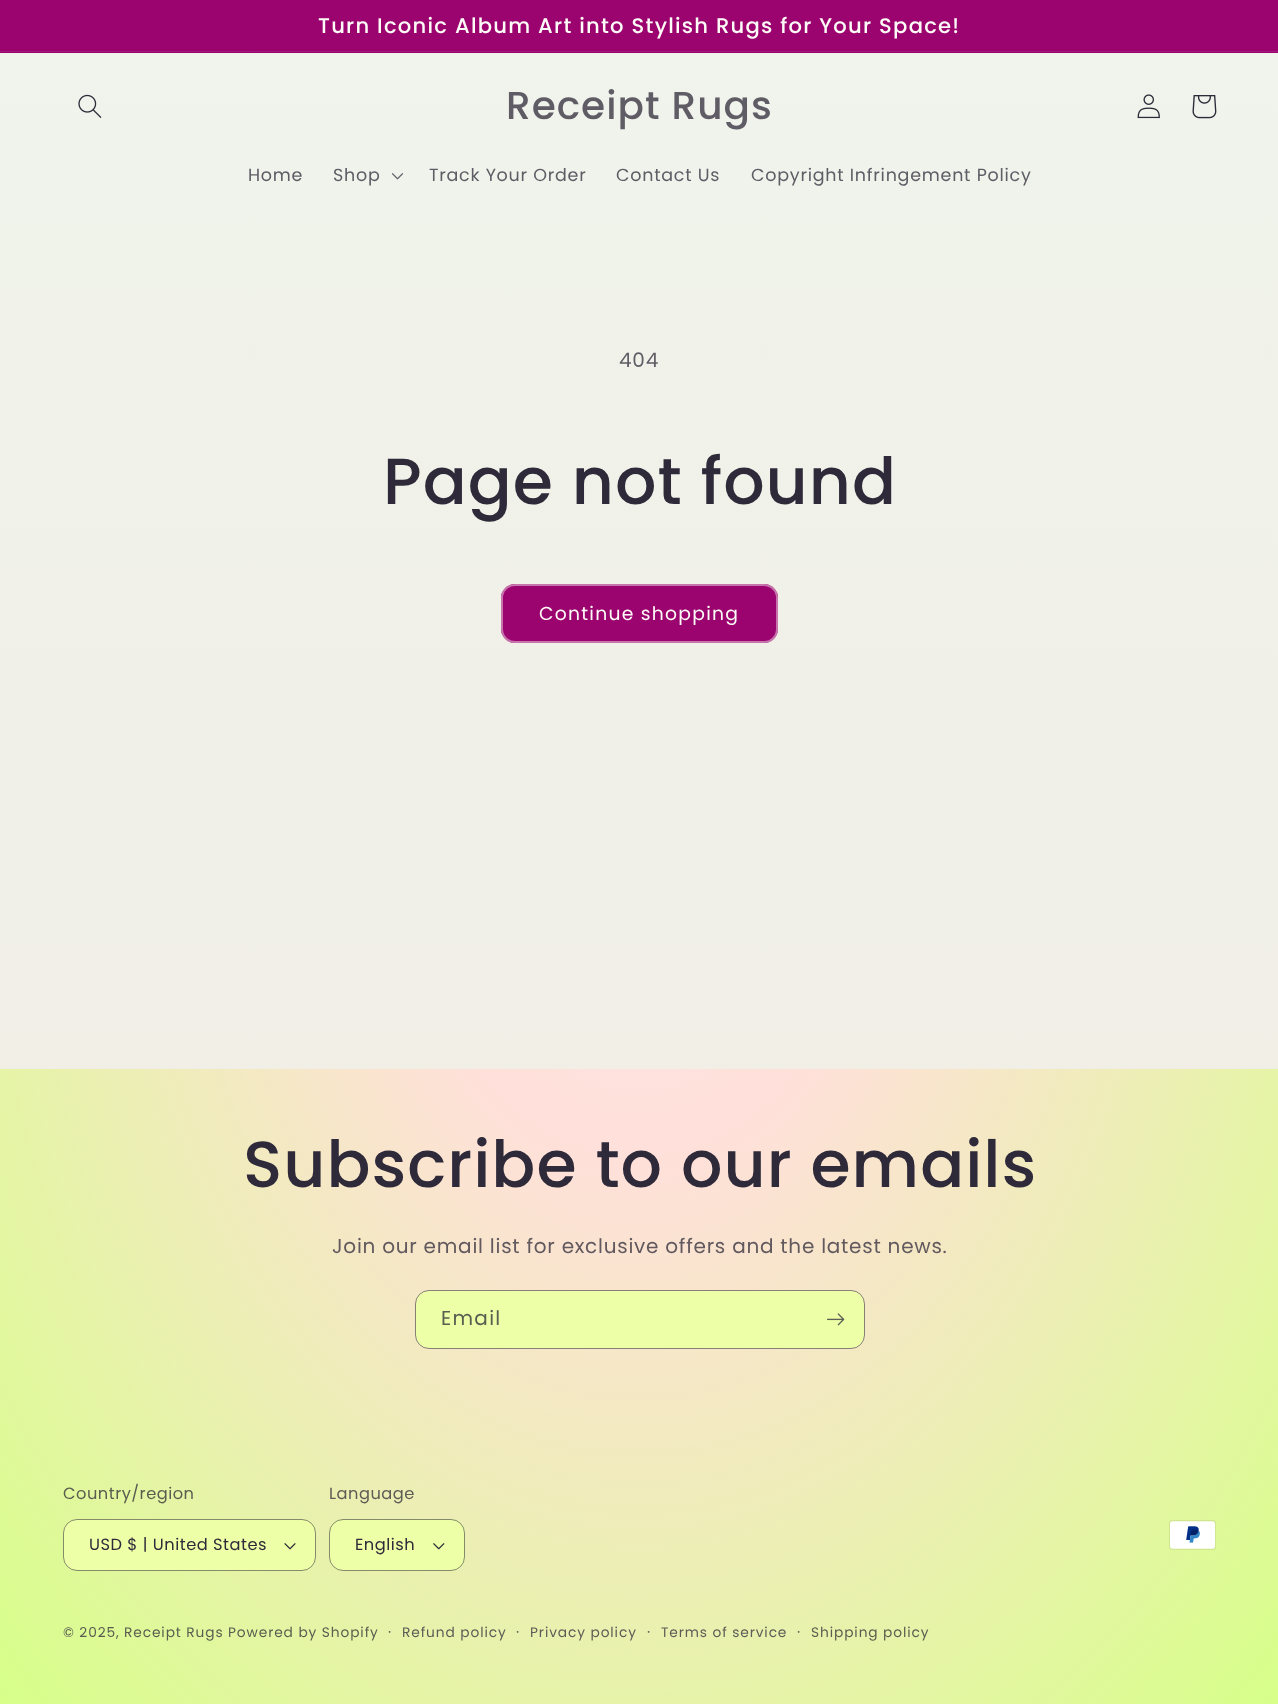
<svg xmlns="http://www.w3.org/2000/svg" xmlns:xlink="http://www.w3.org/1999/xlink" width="1278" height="1704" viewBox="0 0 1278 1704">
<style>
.cls-1{font:500 21.1px Poppins;letter-spacing:1.25px;fill:#fdfbf7}
.cls-2{font:500 39px Poppins;letter-spacing:1px;fill:#5f5c65}
.cls-3{font:17.5px Poppins;letter-spacing:0.75px;fill:#5f5c65}
.cls-4{font:20px Poppins;letter-spacing:0.75px;fill:#5f5c65}
.cls-5{font:500 65px Poppins;letter-spacing:1px;fill:#2e2a39}
.cls-6{font:18.75px Poppins;letter-spacing:1.25px;fill:#fdfbf7}
.cls-7{font:20px Poppins;letter-spacing:0.75px;fill:#61595e}
.cls-8{font:20px Poppins;letter-spacing:1.25px;fill:#5a5e50}
.cls-9{font:16.25px Poppins;letter-spacing:0.5px;fill:#5a5e50}
.cls-10{font:16.25px Poppins;letter-spacing:0.5px;fill:#2e2a39}
.cls-11{font:16.25px Poppins;letter-spacing:0.5px;fill:#5d5c56}
.cls-12{font:13.75px Poppins;letter-spacing:0.9px;fill:#5a5e50}
.cls-13{font:15px Poppins;letter-spacing:0.9px;fill:#5a5e50}
.cls-14{font:13.75px Poppins;letter-spacing:0.9px;fill:#5d5c56}
.cls-15{font:15px Poppins;letter-spacing:0.9px;fill:#5d5c56}
</style>
<defs>
<linearGradient id="g1" gradientUnits="userSpaceOnUse" x1="639" y1="0" x2="639" y2="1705"><stop offset="0" stop-color="#f0f4ec"/><stop offset="1" stop-color="#f1ebe2"/></linearGradient>
<radialGradient id="g2" gradientUnits="userSpaceOnUse" cx="0" cy="0" r="1" gradientTransform="matrix(904 0 0 1206 639 853)"><stop offset="0" stop-color="#ffe5e5"/><stop offset="0.25" stop-color="#ffe0da"/><stop offset="1" stop-color="#d7ff89"/></radialGradient>
</defs>
<rect width="100%" height="100%" fill="#ffffff"/>
<rect fill="url(#g1)" x="0" y="53" width="1278" height="1016"/>
<rect fill="#9b046f" x="0" y="0" width="1278" height="53"/>
<rect fill="#a3187a" x="0" y="51" width="1278" height="1"/>
<image xlink:href="image0.png" x="78" y="94" width="24" height="24"/>
<image xlink:href="image1.png" x="1137" y="94" width="23" height="25"/>
<image xlink:href="image2.png" x="1192" y="95" width="25" height="24"/>
<image xlink:href="image3.png" x="391" y="173" width="13" height="7"/>
<rect fill="#9b046f" x="501" y="584" width="277" height="59" rx="14"/>
<rect fill="none" stroke="#9b046f" x="501.5" y="584.5" width="276" height="58" rx="13.5"/>
<rect fill="none" stroke="#fdfbf7" stroke-opacity="0.45" stroke-width="2" x="502" y="585" width="275" height="57" rx="13"/>
<rect fill="url(#g2)" x="0" y="1069" width="1278" height="290"/>
<rect fill="#edffa7" x="416" y="1291" width="448" height="57" rx="13"/>
<rect fill="none" stroke="#2e2a39" stroke-opacity="0.55" x="415.5" y="1290.5" width="449" height="58" rx="13.5"/>
<image xlink:href="image4.png" x="827" y="1313" width="18" height="13"/>
<rect fill="url(#g2)" x="0" y="1359" width="1278" height="345"/>
<rect fill="#edffa7" x="63" y="1519" width="253" height="52" rx="14"/>
<image xlink:href="image5.png" x="284" y="1543" width="12" height="7"/>
<rect fill="none" stroke="#2e2a39" stroke-opacity="0.55" x="63.5" y="1519.5" width="252" height="51" rx="13.5"/>
<rect fill="#edffa7" x="329" y="1519" width="136" height="52" rx="14"/>
<image xlink:href="image6.png" x="433" y="1543" width="12" height="7"/>
<rect fill="none" stroke="#2e2a39" stroke-opacity="0.55" x="329.5" y="1519.5" width="135" height="51" rx="13.5"/>
<image xlink:href="image7.png" x="1169" y="1520" width="47" height="30"/>
<text class="cls-1" x="318" y="33">Turn Iconic Album Art into Stylish Rugs for Your Space!</text>
<text class="cls-2" x="506" y="119">Receipt Rugs</text>
<text class="cls-3" x="248" y="181">Home</text>
<text class="cls-3" x="333" y="181">Shop</text>
<text class="cls-3" x="429" y="181">Track Your Order</text>
<text class="cls-3" x="616" y="181">Contact Us</text>
<text class="cls-3" x="751" y="181">Copyright Infringement Policy</text>
<text class="cls-4" x="619" y="367">404</text>
<text class="cls-5" x="383" y="504">Page not found</text>
<text class="cls-6" x="539" y="620">Continue shopping</text>
<text class="cls-5" x="243" y="1187">Subscribe to our emails</text>
<text class="cls-7" x="332" y="1253">Join our email list for exclusive offers and the latest news.</text>
<text class="cls-8" x="441" y="1325">Email</text>
<text class="cls-9" x="63" y="1499">Country/region</text>
<text class="cls-10" x="89" y="1550">USD $ | United States</text>
<text class="cls-11" x="329" y="1499">Language</text>
<text class="cls-10" x="355" y="1550">English</text>
<text class="cls-12" x="63" y="1637">© 2025,</text>
<text class="cls-12" x="124" y="1637">Receipt Rugs</text>
<text class="cls-12" x="228" y="1637">Powered by Shopify</text>
<text class="cls-13" x="388" y="1637">·</text>
<text class="cls-14" x="402" y="1637">Refund policy</text>
<text class="cls-15" x="516" y="1637">·</text>
<text class="cls-14" x="530" y="1637">Privacy policy</text>
<text class="cls-15" x="647" y="1637">·</text>
<text class="cls-14" x="661" y="1637">Terms of service</text>
<text class="cls-15" x="797" y="1637">·</text>
<text class="cls-12" x="811" y="1637">Shipping policy</text>
</svg>
